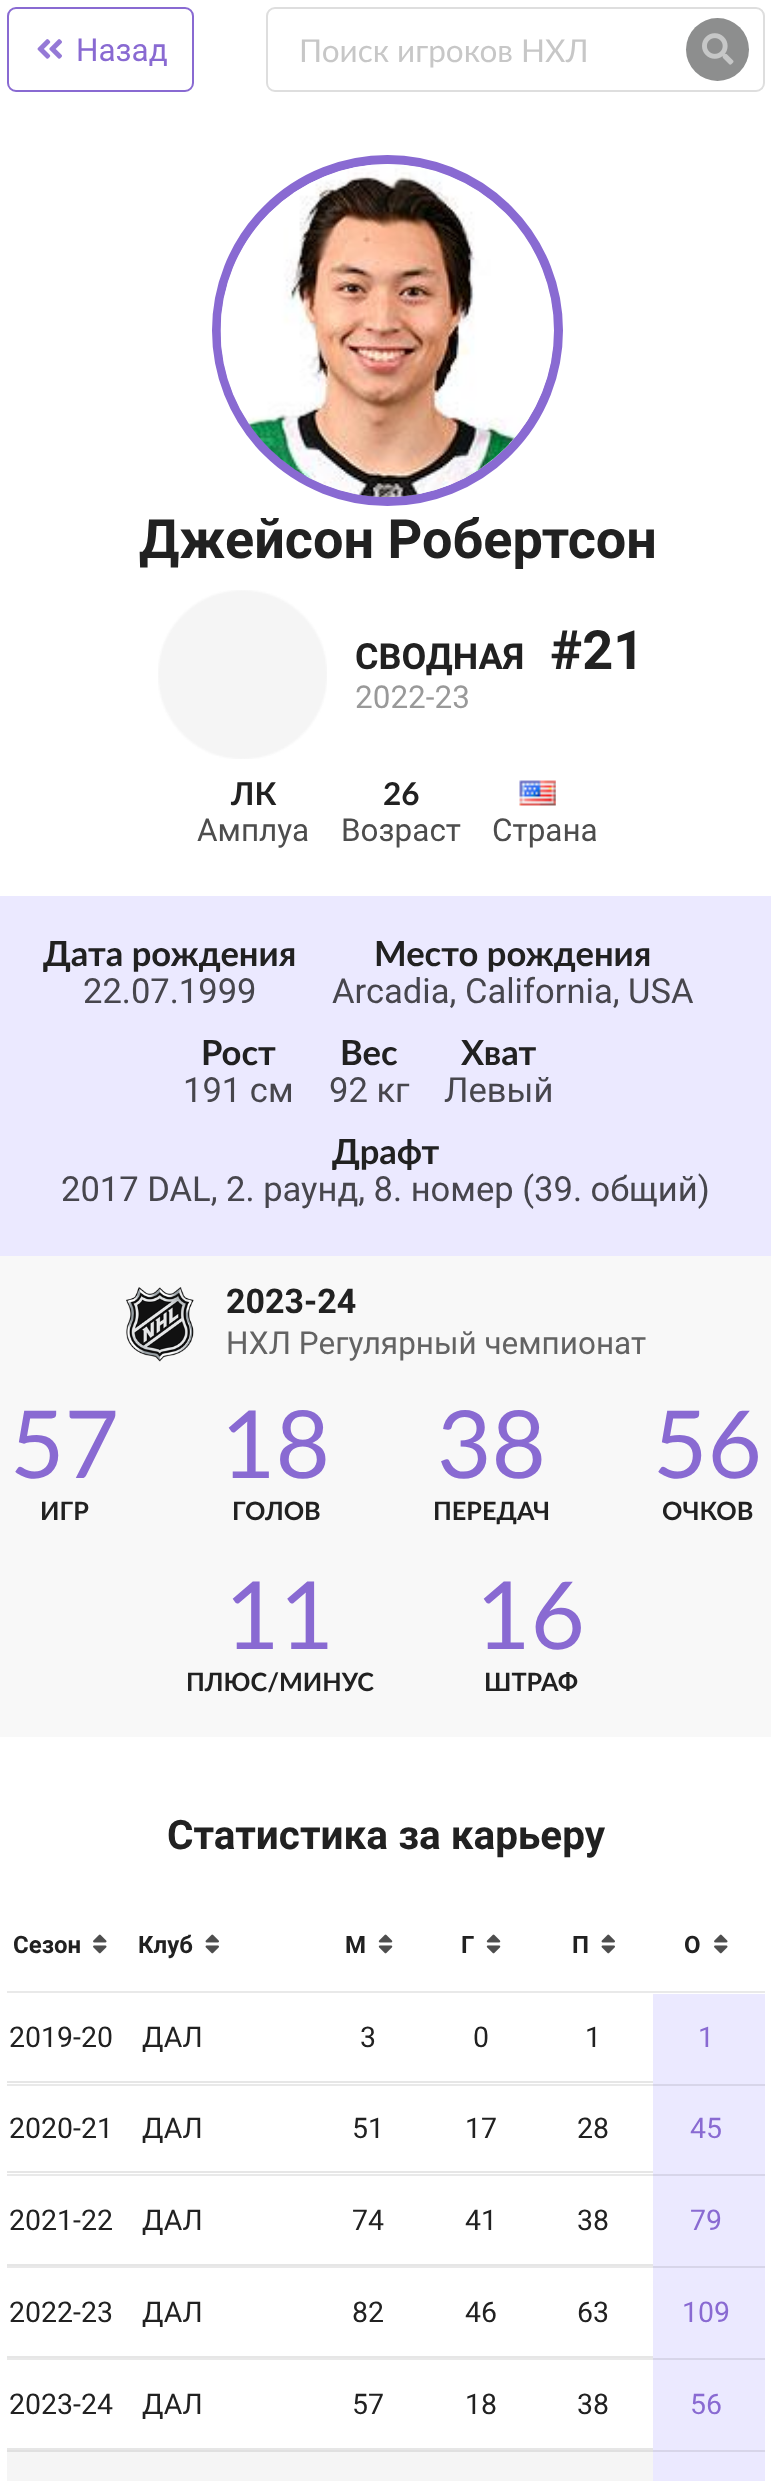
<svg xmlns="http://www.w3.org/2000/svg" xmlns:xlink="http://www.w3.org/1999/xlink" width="771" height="2481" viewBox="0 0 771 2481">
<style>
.cls-1{font:31.5px Roboto;fill:#896ad2}
.cls-2{font:31.5px Lato;fill:#c7c7c7}
.cls-3{font:bold 54px Roboto;fill:#212121}
.cls-4{font:bold 36px Roboto;fill:#212121}
.cls-5{font:31.5px Roboto;fill:#999999}
.cls-6{font:bold 31.5px Lato;fill:#212121}
.cls-7{font:31.5px Roboto;fill:#4d4d4d}
.cls-8{font:bold 34.6px Lato;fill:#212121}
.cls-9{font:34.6px Roboto;fill:#47464d}
.cls-10{font:bold 34px Roboto;fill:#212121}
.cls-11{font:31.5px Roboto;fill:#636363}
.cls-12{font:94px Lato;fill:#896ad2}
.cls-13{font:bold 25.25px Lato;fill:#212121}
.cls-14{font:bold 40.5px Roboto;fill:#212121}
.cls-15{font:bold 24px Roboto;fill:#212121}
.cls-16{font:28.5px Roboto;fill:#212121}
.cls-17{font:28.5px Roboto;fill:#896ad2}
</style>
<rect width="100%" height="100%" fill="#ffffff"/>
<rect fill="none" stroke="#896ad2" stroke-width="2" x="8" y="8" width="185" height="83" rx="8"/>
<image xlink:href="image0.png" x="37" y="39" width="25" height="20"/>
<rect fill="none" stroke="#dedede" stroke-width="2" x="267" y="8" width="497" height="83" rx="8"/>
<circle fill="#8d8e8e" cx="717.5" cy="49.5" r="31.5"/>
<image xlink:href="image1.png" x="702" y="33" width="32" height="32"/>
<circle fill="none" stroke="#896ad2" stroke-width="9" cx="387.5" cy="330.5" r="171"/>
<image xlink:href="image2.png" x="220" y="164" width="333" height="333"/>
<image xlink:href="image3.png" x="158" y="590" width="169" height="169"/>
<image xlink:href="image4.png" x="519" y="780" width="37" height="26"/>
<rect fill="#ebe9ff" x="0" y="896" width="771" height="360"/>
<rect fill="#f8f8f8" x="0" y="1256" width="771" height="481"/>
<image xlink:href="image5.png" x="126" y="1287" width="68" height="75"/>
<rect fill="#e9e9e9" x="7" y="1991" width="758" height="2"/>
<image xlink:href="image6.png" x="93" y="1934" width="14" height="20"/>
<image xlink:href="image7.png" x="205" y="1934" width="14" height="20"/>
<image xlink:href="image8.png" x="378" y="1934" width="15" height="20"/>
<image xlink:href="image8.png" x="486" y="1934" width="15" height="20"/>
<image xlink:href="image7.png" x="601" y="1934" width="14" height="20"/>
<image xlink:href="image6.png" x="714" y="1934" width="14" height="20"/>
<rect fill="#e6e6e6" x="7" y="2081" width="646" height="2"/>
<rect fill="#ebe9ff" x="653" y="1994" width="112" height="90"/>
<rect fill="#e6e6e6" x="7" y="2171" width="646" height="2"/>
<rect fill="#e9e9e9" x="7" y="2084" width="646" height="2"/>
<rect fill="#ebe9ff" x="653" y="2086" width="112" height="88"/>
<rect fill="#d7d5e9" x="653" y="2084" width="112" height="2"/>
<rect fill="#e6e6e6" x="7" y="2264" width="646" height="2"/>
<rect fill="#e9e9e9" x="7" y="2174" width="646" height="2"/>
<rect fill="#ebe9ff" x="653" y="2176" width="112" height="90"/>
<rect fill="#d7d5e9" x="653" y="2174" width="112" height="2"/>
<rect fill="#e6e6e6" x="7" y="2356" width="646" height="2"/>
<rect fill="#e9e9e9" x="7" y="2266" width="646" height="2"/>
<rect fill="#ebe9ff" x="653" y="2268" width="112" height="90"/>
<rect fill="#d7d5e9" x="653" y="2266" width="112" height="2"/>
<rect fill="#e6e6e6" x="7" y="2448" width="646" height="2"/>
<rect fill="#e9e9e9" x="7" y="2358" width="646" height="2"/>
<rect fill="#ebe9ff" x="653" y="2360" width="112" height="90"/>
<rect fill="#d7d5e9" x="653" y="2358" width="112" height="2"/>
<rect fill="#f5f5f5" x="7" y="2452" width="646" height="29"/>
<rect fill="#e0e0e0" x="7" y="2450" width="646" height="2"/>
<rect fill="#ebe9ff" x="653" y="2452" width="112" height="29"/>
<rect fill="#d7d5e9" x="653" y="2450" width="112" height="2"/>
<text class="cls-1" x="76" y="61">Назад</text>
<text class="cls-2" x="299" y="62">Поиск игроков НХЛ</text>
<text class="cls-3" x="139" y="558">Джейсон Робертсон</text>
<text class="cls-4" x="355" y="669">СВОДНАЯ</text>
<text class="cls-3" x="550" y="669">#21</text>
<text class="cls-5" x="355" y="708">2022-23</text>
<text class="cls-6" x="231" y="805">ЛК</text>
<text class="cls-7" x="197" y="841">Амплуа</text>
<text class="cls-6" x="383" y="805">26</text>
<text class="cls-7" x="341" y="841">Возраст</text>
<text class="cls-7" x="492" y="841">Страна</text>
<text class="cls-8" x="43" y="966">Дата рождения</text>
<text class="cls-9" x="83" y="1003">22.07.1999</text>
<text class="cls-8" x="374" y="966">Место рождения</text>
<text class="cls-9" x="332" y="1003">Arcadia, California, USA</text>
<text class="cls-8" x="201" y="1065">Рост</text>
<text class="cls-9" x="183" y="1102">191 см</text>
<text class="cls-8" x="340" y="1065">Вес</text>
<text class="cls-9" x="329" y="1102">92 кг</text>
<text class="cls-8" x="461" y="1065">Хват</text>
<text class="cls-9" x="444" y="1102">Левый</text>
<text class="cls-8" x="332" y="1164">Драфт</text>
<text class="cls-9" x="61" y="1201">2017 DAL, 2. раунд, 8. номер (39. общий)</text>
<text class="cls-10" x="226" y="1313">2023-24</text>
<text class="cls-11" x="226" y="1354">НХЛ Регулярный чемпионат</text>
<text class="cls-12" x="10" y="1478">57</text>
<text class="cls-13" x="40" y="1520">ИГР</text>
<text class="cls-12" x="221" y="1478">18</text>
<text class="cls-13" x="232" y="1520">ГОЛОВ</text>
<text class="cls-12" x="437" y="1478">38</text>
<text class="cls-13" x="433" y="1520">ПЕРЕДАЧ</text>
<text class="cls-12" x="653" y="1478">56</text>
<text class="cls-13" x="662" y="1520">ОЧКОВ</text>
<text class="cls-12" x="225" y="1649">11</text>
<text class="cls-13" x="186" y="1691">ПЛЮС/МИНУС</text>
<text class="cls-12" x="476" y="1649">16</text>
<text class="cls-13" x="484" y="1691">ШТРАФ</text>
<text class="cls-14" x="167" y="1849">Статистика за карьеру</text>
<text class="cls-15" x="13" y="1953">Сезон</text>
<text class="cls-15" x="138" y="1953">Клуб</text>
<text class="cls-15" x="345" y="1953">М</text>
<text class="cls-15" x="461" y="1953">Г</text>
<text class="cls-15" x="572" y="1953">П</text>
<text class="cls-15" x="684" y="1953">О</text>
<text class="cls-16" x="9" y="2047">2019-20</text>
<text class="cls-16" x="142" y="2047">ДАЛ</text>
<text class="cls-16" x="360" y="2047">3</text>
<text class="cls-16" x="473" y="2047">0</text>
<text class="cls-16" x="585" y="2047">1</text>
<text class="cls-17" x="698" y="2047">1</text>
<text class="cls-16" x="9" y="2138">2020-21</text>
<text class="cls-16" x="142" y="2138">ДАЛ</text>
<text class="cls-16" x="352" y="2138">51</text>
<text class="cls-16" x="465" y="2138">17</text>
<text class="cls-16" x="577" y="2138">28</text>
<text class="cls-17" x="690" y="2138">45</text>
<text class="cls-16" x="9" y="2230">2021-22</text>
<text class="cls-16" x="142" y="2230">ДАЛ</text>
<text class="cls-16" x="352" y="2230">74</text>
<text class="cls-16" x="465" y="2230">41</text>
<text class="cls-16" x="577" y="2230">38</text>
<text class="cls-17" x="690" y="2230">79</text>
<text class="cls-16" x="9" y="2322">2022-23</text>
<text class="cls-16" x="142" y="2322">ДАЛ</text>
<text class="cls-16" x="352" y="2322">82</text>
<text class="cls-16" x="465" y="2322">46</text>
<text class="cls-16" x="577" y="2322">63</text>
<text class="cls-17" x="682" y="2322">109</text>
<text class="cls-16" x="9" y="2414">2023-24</text>
<text class="cls-16" x="142" y="2414">ДАЛ</text>
<text class="cls-16" x="352" y="2414">57</text>
<text class="cls-16" x="465" y="2414">18</text>
<text class="cls-16" x="577" y="2414">38</text>
<text class="cls-17" x="690" y="2414">56</text>
</svg>
